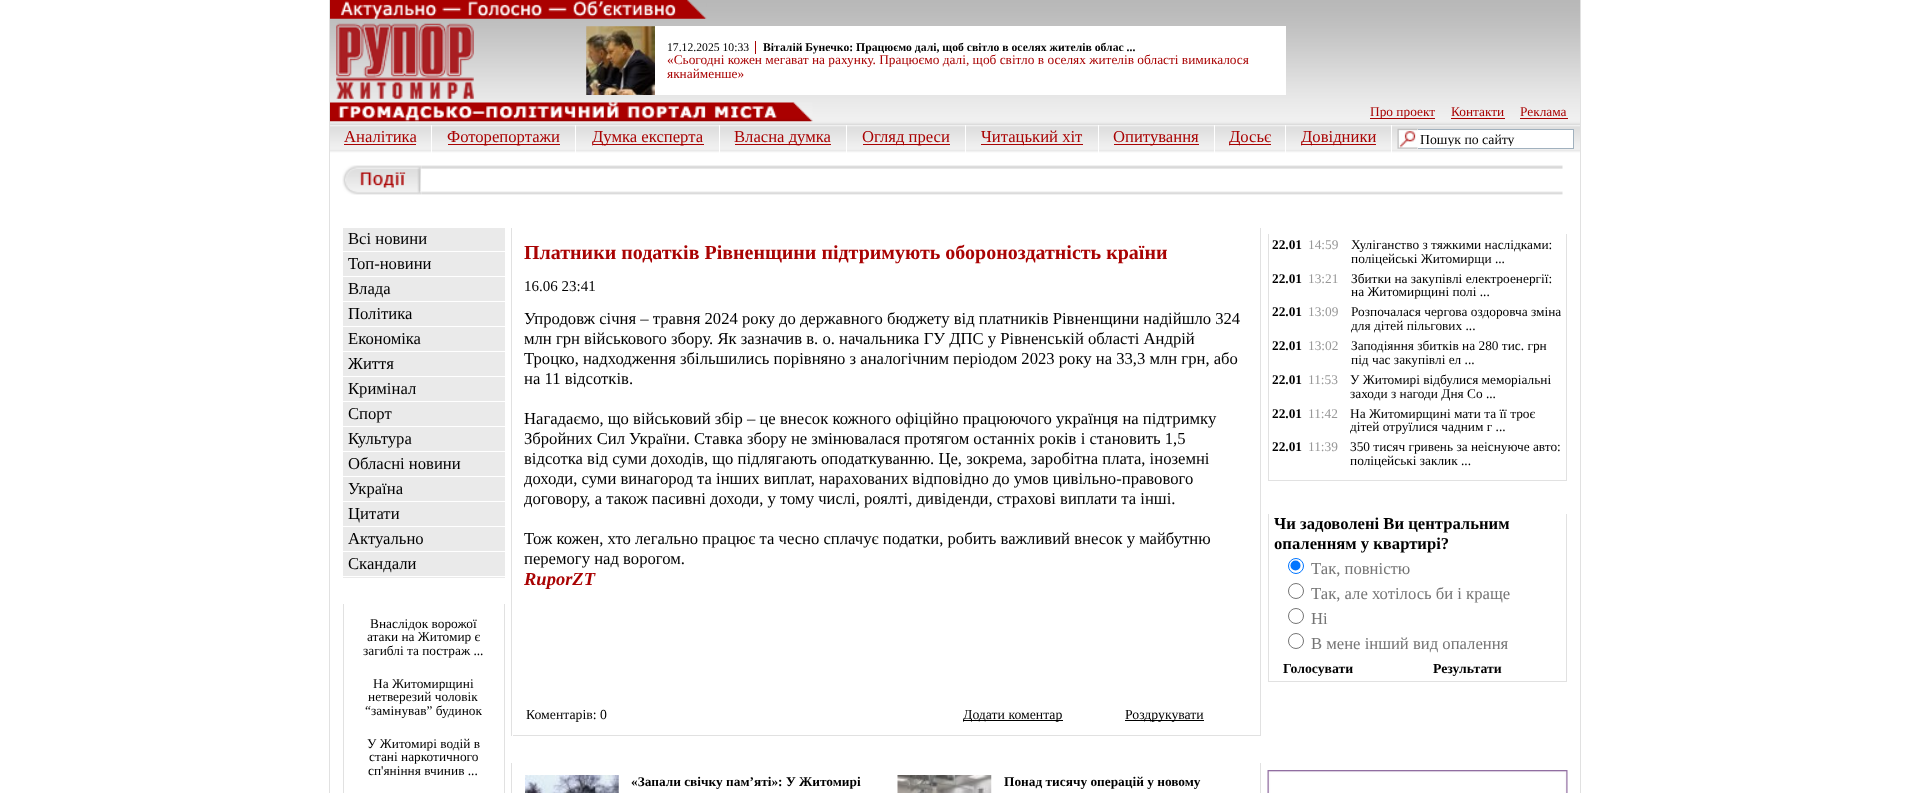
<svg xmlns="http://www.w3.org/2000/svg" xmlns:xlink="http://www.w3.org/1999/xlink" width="1908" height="793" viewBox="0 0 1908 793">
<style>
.cls-1{font:11.7px Liberation Serif;fill:#000000}
.cls-2{font:bold 11.7px Liberation Serif;fill:#000000}
.cls-3{font:13.35px Liberation Serif;fill:#a90303}
.cls-4{font:16.65px Liberation Serif;fill:#a90303}
.cls-5{font:13.75px Liberation Serif;fill:#000000}
.cls-6{font:16.65px Liberation Serif;fill:#000000}
.cls-7{font:13.35px Liberation Serif;fill:#000000}
.cls-8{font:bold 20px Liberation Serif;fill:#a90303}
.cls-9{font:15px Liberation Serif;fill:#000000}
.cls-10{font:italic bold 18.5px Liberation Serif;fill:#a90303}
.cls-11{font:bold 13.35px Liberation Serif;fill:#000000}
.cls-12{font:13.35px Liberation Serif;fill:#979797}
.cls-13{font:bold 16.65px Liberation Serif;fill:#000000}
.cls-14{font:16.65px Liberation Serif;fill:#757575}
.cls-15{font:bold 13.75px Liberation Serif;fill:#000000}
</style>
<defs>
<clipPath id="clip1"><rect x="1420" y="131" width="150" height="15"/></clipPath>
</defs>
<rect width="100%" height="100%" fill="#ffffff"/>
<rect fill="#e1e1e1" x="329" y="0" width="1" height="793"/>
<image xlink:href="image0.png" x="330" y="0" width="1250" height="125"/>
<image xlink:href="image1.png" x="330" y="0" width="377" height="19"/>
<image xlink:href="image2.png" x="336" y="23" width="138" height="76"/>
<image xlink:href="image3.png" x="586" y="26" width="69" height="69"/>
<rect fill="#ffffff" x="655" y="26" width="631" height="69"/>
<rect fill="#a90303" x="755" y="41" width="1" height="13"/>
<image xlink:href="image4.png" x="330" y="102" width="483" height="20"/>
<rect fill="#a90303" x="1370" y="118" width="65" height="1"/>
<rect fill="#a90303" x="1451" y="118" width="54" height="1"/>
<rect fill="#a90303" x="1520" y="118" width="48" height="1"/>
<image xlink:href="image5.png" x="330" y="125" width="1250" height="28"/>
<rect fill="#ffffff" x="431" y="125" width="1" height="29"/>
<rect fill="#a90303" x="344" y="144" width="72" height="1"/>
<rect fill="#ffffff" x="575" y="125" width="1" height="29"/>
<rect fill="#a90303" x="448" y="144" width="112" height="1"/>
<rect fill="#ffffff" x="719" y="125" width="1" height="29"/>
<rect fill="#a90303" x="593" y="144" width="111" height="1"/>
<rect fill="#ffffff" x="846" y="125" width="1" height="29"/>
<rect fill="#a90303" x="735" y="144" width="96" height="1"/>
<rect fill="#ffffff" x="965" y="125" width="1" height="29"/>
<rect fill="#a90303" x="863" y="144" width="87" height="1"/>
<rect fill="#ffffff" x="1098" y="125" width="1" height="29"/>
<rect fill="#a90303" x="981" y="144" width="102" height="1"/>
<rect fill="#ffffff" x="1214" y="125" width="1" height="29"/>
<rect fill="#a90303" x="1114" y="144" width="85" height="1"/>
<rect fill="#ffffff" x="1285" y="125" width="1" height="29"/>
<rect fill="#a90303" x="1229" y="144" width="42" height="1"/>
<rect fill="#ffffff" x="1391" y="125" width="1" height="29"/>
<rect fill="#a90303" x="1301" y="144" width="75" height="1"/>
<rect fill="#ffffff" x="1398" y="129" width="175" height="20"/>
<image xlink:href="image6.png" x="1397" y="128" width="21" height="21"/>
<rect fill="#a1b1be" x="1418" y="129" width="156" height="1"/>
<rect fill="#a1b1be" x="1573" y="129" width="1" height="20"/>
<rect fill="#a1b1be" x="1418" y="148" width="156" height="1"/>
<image xlink:href="image7.png" x="342" y="165" width="80" height="30"/>
<image xlink:href="image8.png" x="421" y="165" width="1142" height="30"/>
<rect fill="#eaeaea" x="343" y="228" width="162" height="350"/>
<rect fill="#ffffff" x="341" y="251" width="164" height="1"/>
<rect fill="#ffffff" x="341" y="276" width="164" height="1"/>
<rect fill="#ffffff" x="341" y="301" width="164" height="1"/>
<rect fill="#ffffff" x="341" y="326" width="164" height="1"/>
<rect fill="#ffffff" x="341" y="351" width="164" height="1"/>
<rect fill="#ffffff" x="341" y="376" width="164" height="1"/>
<rect fill="#ffffff" x="341" y="401" width="164" height="1"/>
<rect fill="#ffffff" x="341" y="426" width="164" height="1"/>
<rect fill="#ffffff" x="341" y="451" width="164" height="1"/>
<rect fill="#ffffff" x="341" y="476" width="164" height="1"/>
<rect fill="#ffffff" x="341" y="501" width="164" height="1"/>
<rect fill="#ffffff" x="341" y="526" width="164" height="1"/>
<rect fill="#ffffff" x="341" y="551" width="164" height="1"/>
<rect fill="#ffffff" x="341" y="576" width="164" height="1"/>
<rect fill="#e1e1e1" x="343" y="604" width="1" height="189"/>
<rect fill="#e1e1e1" x="504" y="604" width="1" height="189"/>
<rect fill="#e1e1e1" x="511" y="228" width="1" height="508"/>
<rect fill="#000000" x="963" y="720" width="100" height="1"/>
<rect fill="#000000" x="1125" y="720" width="79" height="1"/>
<rect fill="#e1e1e1" x="1260" y="228" width="1" height="507"/>
<rect fill="#e1e1e1" x="513" y="735" width="748" height="1"/>
<rect fill="#e1e1e1" x="511" y="763" width="1" height="30"/>
<image xlink:href="image9.png" x="525" y="775" width="94" height="18"/>
<image xlink:href="image10.png" x="897" y="775" width="95" height="18"/>
<rect fill="#e1e1e1" x="1260" y="763" width="1" height="30"/>
<rect fill="#e1e1e1" x="1268" y="234" width="1" height="247"/>
<rect fill="#e1e1e1" x="1566" y="234" width="1" height="246"/>
<rect fill="#e1e1e1" x="1269" y="480" width="298" height="1"/>
<rect fill="#e1e1e1" x="1268" y="514" width="1" height="168"/>
<circle fill="none" stroke="#0075ff" cx="1296" cy="566" r="7.5"/>
<circle fill="#0075ff" cx="1295.5" cy="565.5" r="5"/>
<circle fill="none" stroke="#767676" cx="1296" cy="591" r="7.5"/>
<circle fill="none" stroke="#767676" cx="1296" cy="616" r="7.5"/>
<circle fill="none" stroke="#767676" cx="1296" cy="641" r="7.5"/>
<rect fill="#e1e1e1" x="1566" y="514" width="1" height="167"/>
<rect fill="#e1e1e1" x="1269" y="681" width="298" height="1"/>
<image xlink:href="image11.png" x="1267" y="770" width="301" height="23"/>
<rect fill="#e1e1e1" x="1580" y="0" width="1" height="793"/>
<text class="cls-1" x="667" y="51">17.12.2025 10:33</text>
<text class="cls-2" x="763" y="51">Віталій Бунечко: Працюємо далі, щоб світло в оселях жителів облас ...</text>
<text class="cls-3"><tspan x="667" y="64">«Сьогодні кожен мегават на рахунку. Працюємо далі, щоб світло в оселях жителів області вимикалося</tspan><tspan x="667" y="78">якнайменше»</tspan></text>
<text class="cls-3" x="1370" y="116">Про проект</text>
<text class="cls-3" x="1451" y="116">Контакти</text>
<text class="cls-3" x="1520" y="116">Реклама</text>
<text class="cls-4" x="344" y="142">Аналітика</text>
<text class="cls-4" x="447" y="142">Фоторепортажи</text>
<text class="cls-4" x="592" y="142">Думка експерта</text>
<text class="cls-4" x="734" y="142">Власна думка</text>
<text class="cls-4" x="862" y="142">Огляд преси</text>
<text class="cls-4" x="981" y="142">Читацький хіт</text>
<text class="cls-4" x="1113" y="142">Опитування</text>
<text class="cls-4" x="1229" y="142">Досьє</text>
<text class="cls-4" x="1301" y="142">Довідники</text>
<g clip-path="url(#clip1)">
<text class="cls-5" x="1420" y="144">Пошук по сайту</text>
</g>
<text class="cls-6"><tspan x="348" y="244">Всі новини</tspan><tspan x="348" y="269">Топ-новини</tspan><tspan x="348" y="294">Влада</tspan><tspan x="348" y="319">Політика</tspan><tspan x="348" y="344">Економіка</tspan><tspan x="348" y="369">Життя</tspan><tspan x="348" y="394">Кримінал</tspan><tspan x="348" y="419">Спорт</tspan><tspan x="348" y="444">Культура</tspan><tspan x="348" y="469">Обласні новини</tspan><tspan x="348" y="494">Україна</tspan><tspan x="348" y="519">Цитати</tspan><tspan x="348" y="544">Актуально</tspan><tspan x="348" y="569">Скандали</tspan></text>
<text class="cls-7" x="370" y="628">Внаслідок ворожої</text>
<text class="cls-7" x="367" y="641">атаки на Житомир є</text>
<text class="cls-7" x="363" y="655">загиблі та постраж ...</text>
<text class="cls-7" x="373" y="688">На Житомирщині</text>
<text class="cls-7" x="368" y="701">нетверезий чоловік</text>
<text class="cls-7" x="365" y="715">“замінував” будинок</text>
<text class="cls-7" x="367" y="748">У Житомирі водій в</text>
<text class="cls-7" x="369" y="761">стані наркотичного</text>
<text class="cls-7" x="368" y="775">сп'яніння вчинив ...</text>
<text class="cls-8" x="524" y="259">Платники податків Рівненщини підтримують обороноздатність країни</text>
<text class="cls-9" x="524" y="291">16.06 23:41</text>
<text class="cls-6"><tspan x="524" y="324">Упродовж січня – травня 2024 року до державного бюджету від платників Рівненщини надійшло 324</tspan><tspan x="524" y="344">млн грн військового збору. Як зазначив в. о. начальника ГУ ДПС у Рівненській області Андрій</tspan><tspan x="524" y="364">Троцко, надходження збільшились порівняно з аналогічним періодом 2023 року на 33,3 млн грн, або</tspan><tspan x="524" y="384">на 11 відсотків.</tspan></text>
<text class="cls-6"><tspan x="524" y="424">Нагадаємо, що військовий збір – це внесок кожного офіційно працюючого українця на підтримку</tspan><tspan x="524" y="444">Збройних Сил України. Ставка збору не змінювалася протягом останніх років і становить 1,5</tspan><tspan x="524" y="464">відсотка від суми доходів, що підлягають оподаткуванню. Це, зокрема, заробітна плата, іноземні</tspan><tspan x="524" y="484">доходи, суми винагород та інших виплат, нарахованих відповідно до умов цивільно-правового</tspan><tspan x="524" y="504">договору, а також пасивні доходи, у тому числі, роялті, дивіденди, страхові виплати та інші.</tspan></text>
<text class="cls-6"><tspan x="524" y="544">Тож кожен, хто легально працює та чесно сплачує податки, робить важливий внесок у майбутню</tspan><tspan x="524" y="564">перемогу над ворогом.</tspan></text>
<text class="cls-10" x="524" y="585">RuporZT</text>
<text class="cls-5" x="526" y="719">Коментарів: 0</text>
<text class="cls-5" x="963" y="719">Додати коментар</text>
<text class="cls-5" x="1125" y="719">Роздрукувати</text>
<text class="cls-11" x="631" y="786">«Запали свічку пам’яті»: У Житомирі</text>
<text class="cls-11" x="1004" y="786">Понад тисячу операцій у новому</text>
<text class="cls-11" x="1272" y="249">22.01</text>
<text class="cls-12" x="1308" y="249">14:59</text>
<text class="cls-7"><tspan x="1351" y="249">Хуліганство з тяжкими наслідками:</tspan><tspan x="1351" y="263">поліцейські Житомирщи ...</tspan></text>
<text class="cls-11" x="1272" y="283">22.01</text>
<text class="cls-12" x="1308" y="283">13:21</text>
<text class="cls-7"><tspan x="1351" y="283">Збитки на закупівлі електроенергії:</tspan><tspan x="1351" y="296">на Житомирщині полі ...</tspan></text>
<text class="cls-11" x="1272" y="316">22.01</text>
<text class="cls-12" x="1308" y="316">13:09</text>
<text class="cls-7"><tspan x="1351" y="316">Розпочалася чергова оздоровча зміна</tspan><tspan x="1351" y="330">для дітей пільгових ...</tspan></text>
<text class="cls-11" x="1272" y="350">22.01</text>
<text class="cls-12" x="1308" y="350">13:02</text>
<text class="cls-7"><tspan x="1351" y="350">Заподіяння збитків на 280 тис. грн</tspan><tspan x="1351" y="364">під час закупівлі ел ...</tspan></text>
<text class="cls-11" x="1272" y="384">22.01</text>
<text class="cls-12" x="1308" y="384">11:53</text>
<text class="cls-7"><tspan x="1350" y="384">У Житомирі відбулися меморіальні</tspan><tspan x="1350" y="398">заходи з нагоди Дня Со ...</tspan></text>
<text class="cls-11" x="1272" y="418">22.01</text>
<text class="cls-12" x="1308" y="418">11:42</text>
<text class="cls-7"><tspan x="1350" y="418">На Житомирщині мати та її троє</tspan><tspan x="1350" y="431">дітей отруїлися чадним г ...</tspan></text>
<text class="cls-11" x="1272" y="451">22.01</text>
<text class="cls-12" x="1308" y="451">11:39</text>
<text class="cls-7"><tspan x="1350" y="451">350 тисяч гривень за неіснуюче авто:</tspan><tspan x="1350" y="465">поліцейські заклик ...</tspan></text>
<text class="cls-13"><tspan x="1274" y="529">Чи задоволені Ви центральним</tspan><tspan x="1274" y="549">опаленням у квартирі?</tspan></text>
<text class="cls-14"><tspan x="1311" y="574">Так, повністю</tspan><tspan x="1311" y="599">Так, але хотілось би і краще</tspan><tspan x="1311" y="624">Ні</tspan><tspan x="1311" y="649">В мене інший вид опалення</tspan></text>
<text class="cls-15" x="1283" y="673">Голосувати</text>
<text class="cls-15" x="1433" y="673">Результати</text>
</svg>
